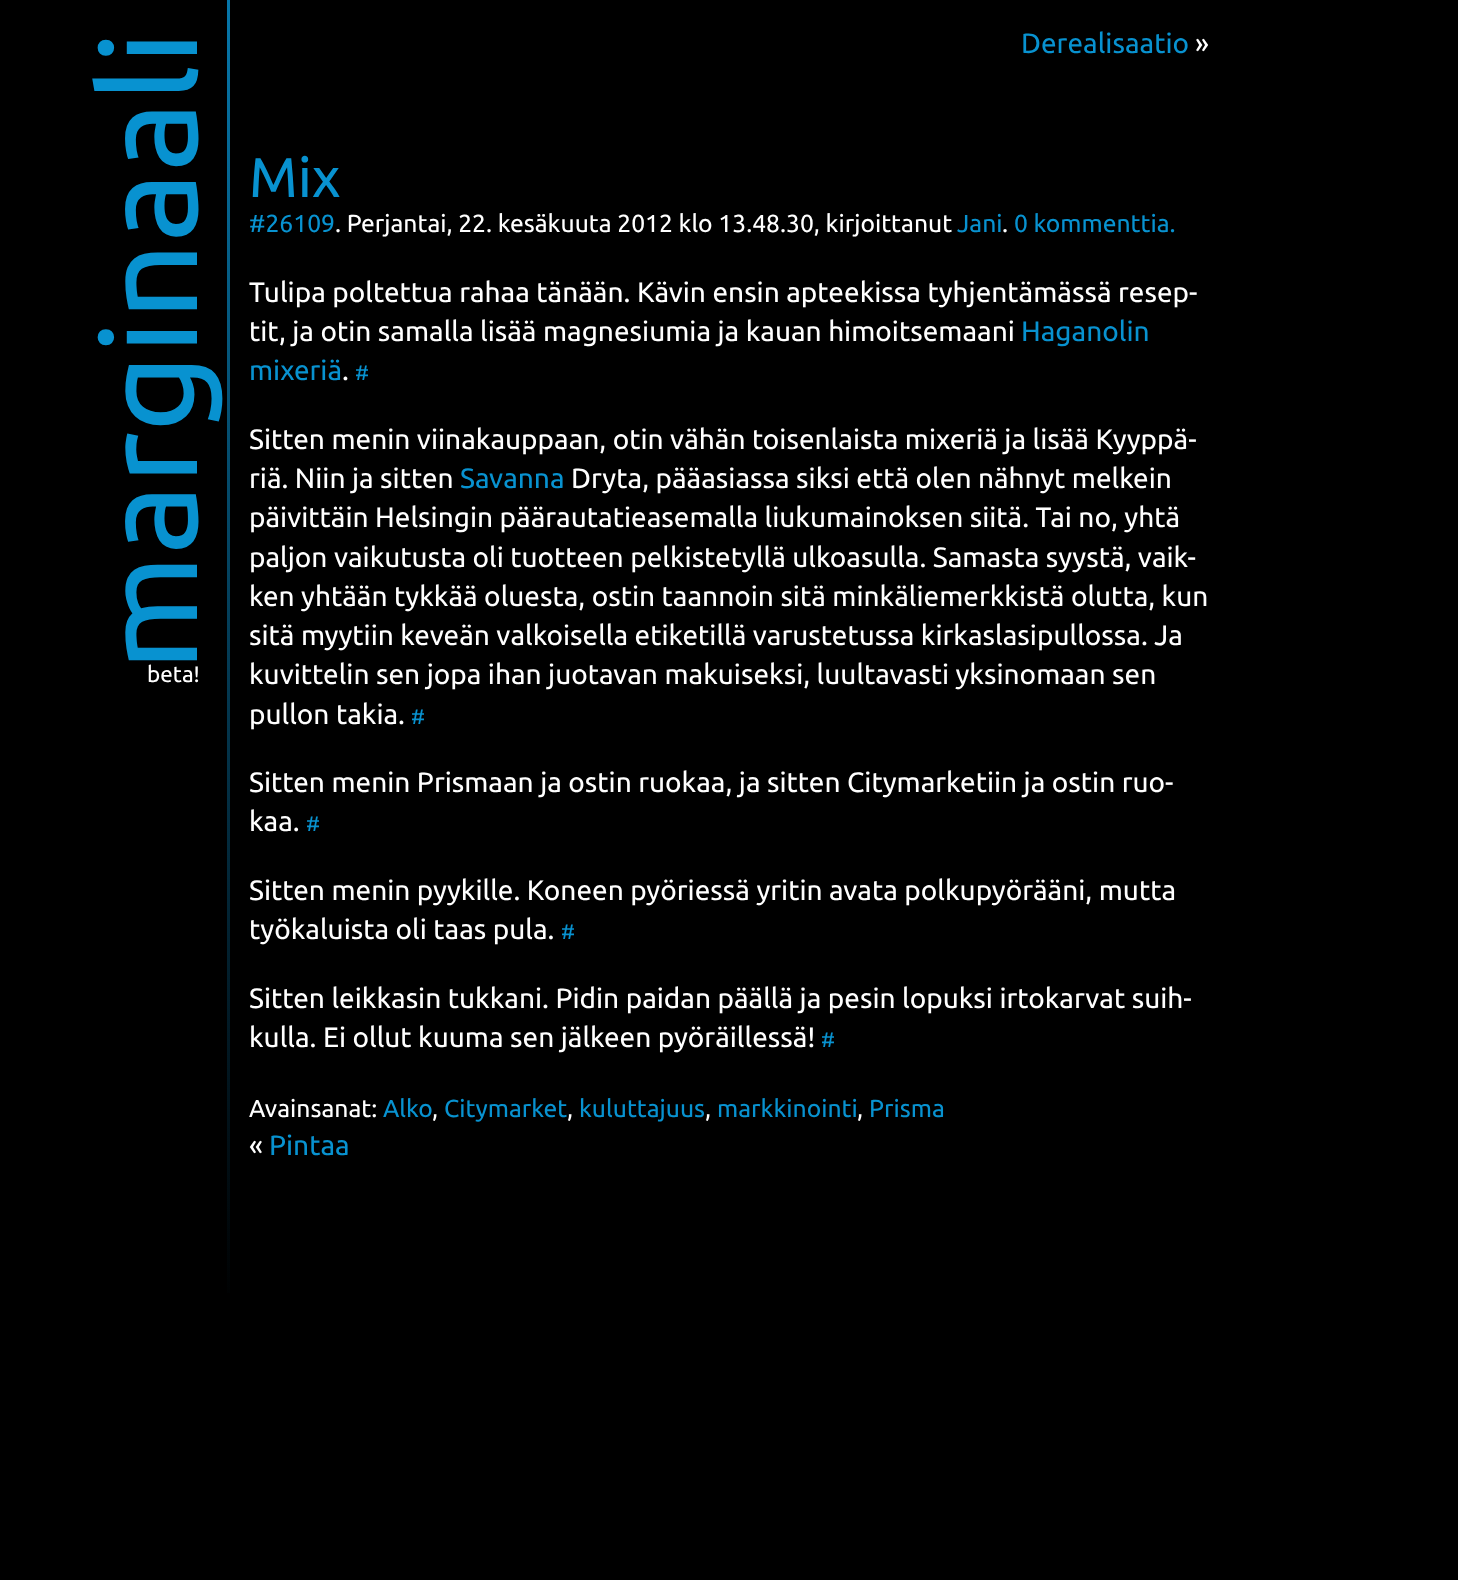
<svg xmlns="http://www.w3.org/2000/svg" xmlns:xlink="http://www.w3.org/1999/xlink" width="1458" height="1580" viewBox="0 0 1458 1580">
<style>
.cls-1{font:135px Ubuntu;fill:#0892d0}
.cls-2{font:22.5px Ubuntu;fill:#ffffff}
.cls-3{font:28px Ubuntu;fill:#0892d0}
.cls-4{font:28px Ubuntu;fill:#ffffff}
.cls-5{font:56px Ubuntu;fill:#0892d0}
.cls-6{font:24.65px Ubuntu;fill:#0892d0}
.cls-7{font:24.65px Ubuntu;fill:#ffffff}
.cls-8{font:21px Ubuntu;fill:#0892d0}
</style>
<defs>
<linearGradient id="g1" gradientUnits="userSpaceOnUse" x1="229" y1="1312" x2="229" y2="-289"><stop offset="0" stop-color="#000000"/><stop offset="1" stop-color="#0891d0"/></linearGradient>
</defs>
<rect width="100%" height="100%" fill="#000000"/>
<rect fill="url(#g1)" x="227" y="0" width="3" height="1293"/>
<text class="cls-1" x="197" y="671" transform="rotate(-90 197 671)">marginaali</text>
<text class="cls-2" x="147" y="682">beta!</text>
<text class="cls-3" x="1021" y="53">Derealisaatio</text>
<text class="cls-4" x="1195" y="53">»</text>
<text class="cls-5" x="249" y="197">Mix</text>
<text class="cls-6" x="249" y="232">#26109</text>
<text class="cls-7" x="335" y="232">. Perjantai, 22. kesäkuuta 2012 klo 13.48.30, kirjoittanut</text>
<text class="cls-6" x="957" y="232">Jani</text>
<text class="cls-7" x="1002" y="232">.</text>
<text class="cls-6" x="1014" y="232">0 kommenttia.</text>
<text class="cls-4"><tspan x="249" y="302">Tulipa poltettua rahaa tänään. Kävin ensin apteekissa tyhjentämässä resep-</tspan><tspan x="249" y="341">tit, ja otin samalla lisää magnesiumia ja kauan himoitsemaani</tspan></text>
<text class="cls-3" x="1021" y="341">Haganolin</text>
<text class="cls-3" x="249" y="380">mixeriä</text>
<text class="cls-4" x="342" y="380">.</text>
<text class="cls-8" x="355" y="380">#</text>
<text class="cls-4"><tspan x="249" y="449">Sitten menin viinakauppaan, otin vähän toisenlaista mixeriä ja lisää Kyyppä-</tspan><tspan x="249" y="488">riä. Niin ja sitten</tspan></text>
<text class="cls-3" x="460" y="488">Savanna</text>
<text class="cls-4" x="571" y="488">Dryta, pääasiassa siksi että olen nähnyt melkein</text>
<text class="cls-4"><tspan x="249" y="527">päivittäin Helsingin päärautatieasemalla liukumainoksen siitä. Tai no, yhtä</tspan><tspan x="249" y="567">paljon vaikutusta oli tuotteen pelkistetyllä ulkoasulla. Samasta syystä, vaik-</tspan><tspan x="249" y="606">ken yhtään tykkää oluesta, ostin taannoin sitä minkäliemerkkistä olutta, kun</tspan><tspan x="249" y="645">sitä myytiin keveän valkoisella etiketillä varustetussa kirkaslasipullossa. Ja</tspan><tspan x="249" y="684">kuvittelin sen jopa ihan juotavan makuiseksi, luultavasti yksinomaan sen</tspan><tspan x="249" y="724">pullon takia.</tspan></text>
<text class="cls-8" x="411" y="724">#</text>
<text class="cls-4"><tspan x="249" y="792">Sitten menin Prismaan ja ostin ruokaa, ja sitten Citymarketiin ja ostin ruo-</tspan><tspan x="249" y="831">kaa.</tspan></text>
<text class="cls-8" x="306" y="831">#</text>
<text class="cls-4"><tspan x="249" y="900">Sitten menin pyykille. Koneen pyöriessä yritin avata polkupyörääni, mutta</tspan><tspan x="249" y="939">työkaluista oli taas pula.</tspan></text>
<text class="cls-8" x="561" y="939">#</text>
<text class="cls-4"><tspan x="249" y="1008">Sitten leikkasin tukkani. Pidin paidan päällä ja pesin lopuksi irtokarvat suih-</tspan><tspan x="249" y="1047">kulla. Ei ollut kuuma sen jälkeen pyöräillessä!</tspan></text>
<text class="cls-8" x="821" y="1047">#</text>
<text class="cls-7" x="249" y="1117">Avainsanat:</text>
<text class="cls-6" x="383" y="1117">Alko</text>
<text class="cls-7" x="432" y="1117">,</text>
<text class="cls-6" x="444" y="1117">Citymarket</text>
<text class="cls-7" x="567" y="1117">,</text>
<text class="cls-6" x="579" y="1117">kuluttajuus</text>
<text class="cls-7" x="705" y="1117">,</text>
<text class="cls-6" x="717" y="1117">markkinointi</text>
<text class="cls-7" x="857" y="1117">,</text>
<text class="cls-6" x="869" y="1117">Prisma</text>
<text class="cls-4" x="249" y="1155">«</text>
<text class="cls-3" x="269" y="1155">Pintaa</text>
</svg>
